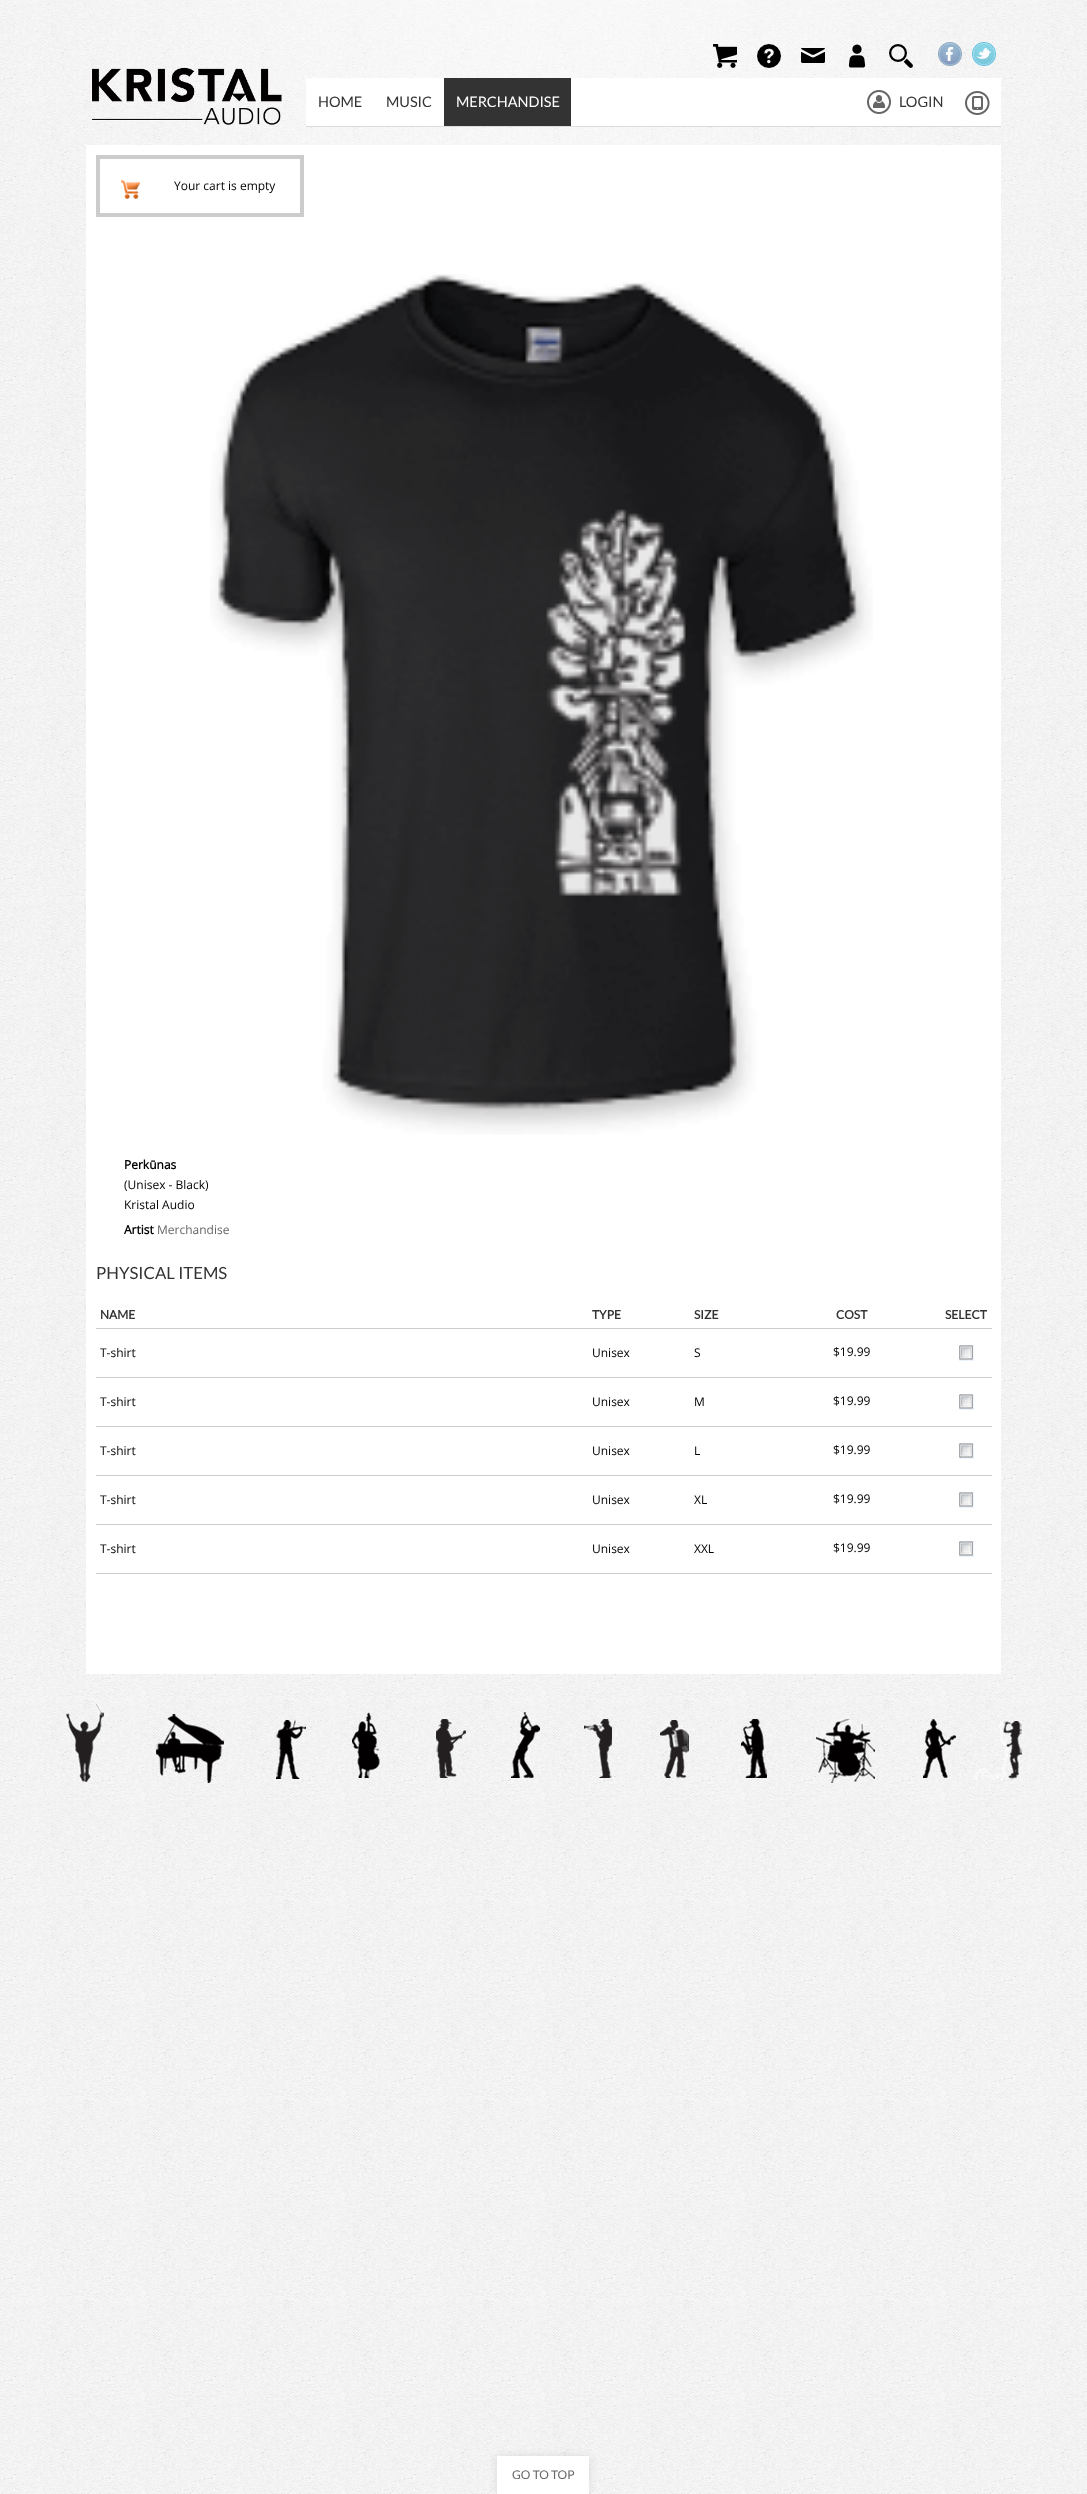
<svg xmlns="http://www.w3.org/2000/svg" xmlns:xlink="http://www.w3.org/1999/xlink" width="1087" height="2494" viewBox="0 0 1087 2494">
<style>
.cls-1{font:14.5px Lato;fill:#333333}
.cls-2{font:14.5px Lato;fill:#ffffff}
.cls-3{font:12px Open Sans;fill:#000000}
.cls-4{font:bold 12px Open Sans;fill:#000000}
.cls-5{font:12px Open Sans;fill:#666666}
.cls-6{font:16.75px Lato;fill:#333333}
.cls-7{font:bold 12px Lato;fill:#333333}
.cls-8{font:12px Lato;fill:#666666}
</style>
<rect width="100%" height="100%" fill="#ffffff"/>
<image xlink:href="image0.png" x="0" y="0" width="1087" height="2494"/>
<image xlink:href="image1.png" x="91" y="67" width="191" height="58"/>
<image xlink:href="image2.png" x="713" y="44" width="24" height="24"/>
<image xlink:href="image3.png" x="757" y="44" width="24" height="24"/>
<image xlink:href="image4.png" x="801" y="48" width="24" height="15"/>
<image xlink:href="image5.png" x="848" y="44" width="18" height="24"/>
<image xlink:href="image6.png" x="889" y="44" width="24" height="24"/>
<image xlink:href="image7.png" x="938" y="42" width="24" height="24"/>
<image xlink:href="image8.png" x="972" y="42" width="24" height="24"/>
<rect fill="#000000" fill-opacity="0.1" x="306" y="126" width="695" height="1"/>
<rect fill="#ffffff" x="306" y="78" width="695" height="48"/>
<rect fill="#333333" x="444" y="78" width="127" height="48"/>
<image xlink:href="image9.png" x="867" y="90" width="24" height="24"/>
<image xlink:href="image10.png" x="965" y="91" width="25" height="24"/>
<rect fill="#ffffff" x="86" y="145" width="915" height="1529"/>
<rect fill="#cccccc" x="96" y="155" width="208" height="62"/>
<rect fill="#ffffff" x="100" y="159" width="200" height="54"/>
<image xlink:href="image11.png" x="121" y="180" width="19" height="19"/>
<image xlink:href="image12.png" x="210" y="274" width="663" height="861"/>
<rect fill="#cccccc" x="96" y="1328" width="896" height="1"/>
<rect fill="#cccccc" x="96" y="1377" width="896" height="1"/>
<image xlink:href="image13.png" x="959" y="1345" width="15" height="16"/>
<rect fill="#cccccc" x="96" y="1426" width="896" height="1"/>
<image xlink:href="image13.png" x="959" y="1394" width="15" height="16"/>
<rect fill="#cccccc" x="96" y="1475" width="896" height="1"/>
<image xlink:href="image13.png" x="959" y="1443" width="15" height="16"/>
<rect fill="#cccccc" x="96" y="1524" width="896" height="1"/>
<image xlink:href="image13.png" x="959" y="1492" width="15" height="16"/>
<rect fill="#cccccc" x="96" y="1573" width="896" height="1"/>
<image xlink:href="image13.png" x="959" y="1541" width="15" height="16"/>
<image xlink:href="image14.png" x="66" y="1704" width="956" height="79"/>
<rect fill="#000000" fill-opacity="0.1" filter="blur(4px)" x="497" y="2456" width="92" height="38"/>
<rect fill="#ffffff" x="497" y="2456" width="92" height="38"/>
<text class="cls-1" x="318" y="107">HOME</text>
<text class="cls-1" x="386" y="107">MUSIC</text>
<text class="cls-2" x="456" y="107">MERCHANDISE</text>
<text class="cls-1" x="899" y="107">LOGIN</text>
<text class="cls-3" x="174" y="190">Your cart is empty</text>
<text class="cls-4" x="124" y="1169">Perkūnas</text>
<text class="cls-3"><tspan x="124" y="1189">(Unisex - Black)</tspan><tspan x="124" y="1209">Kristal Audio</tspan></text>
<text class="cls-4" x="124" y="1234">Artist</text>
<text class="cls-5" x="157" y="1234">Merchandise</text>
<text class="cls-6" x="96" y="1279">PHYSICAL ITEMS</text>
<text class="cls-7" x="100" y="1319">NAME</text>
<text class="cls-7" x="592" y="1319">TYPE</text>
<text class="cls-7" x="694" y="1319">SIZE</text>
<text class="cls-7" x="836" y="1319">COST</text>
<text class="cls-7" x="945" y="1319">SELECT</text>
<text class="cls-3" x="100" y="1357">T-shirt</text>
<text class="cls-3" x="592" y="1357">Unisex</text>
<text class="cls-3" x="694" y="1357">S</text>
<text class="cls-3" x="833" y="1356">$19.99</text>
<text class="cls-3" x="100" y="1406">T-shirt</text>
<text class="cls-3" x="592" y="1406">Unisex</text>
<text class="cls-3" x="694" y="1406">M</text>
<text class="cls-3" x="833" y="1405">$19.99</text>
<text class="cls-3" x="100" y="1455">T-shirt</text>
<text class="cls-3" x="592" y="1455">Unisex</text>
<text class="cls-3" x="694" y="1455">L</text>
<text class="cls-3" x="833" y="1454">$19.99</text>
<text class="cls-3" x="100" y="1504">T-shirt</text>
<text class="cls-3" x="592" y="1504">Unisex</text>
<text class="cls-3" x="694" y="1504">XL</text>
<text class="cls-3" x="833" y="1503">$19.99</text>
<text class="cls-3" x="100" y="1553">T-shirt</text>
<text class="cls-3" x="592" y="1553">Unisex</text>
<text class="cls-3" x="694" y="1553">XXL</text>
<text class="cls-3" x="833" y="1552">$19.99</text>
<text class="cls-8" x="512" y="2479">GO TO TOP</text>
</svg>
